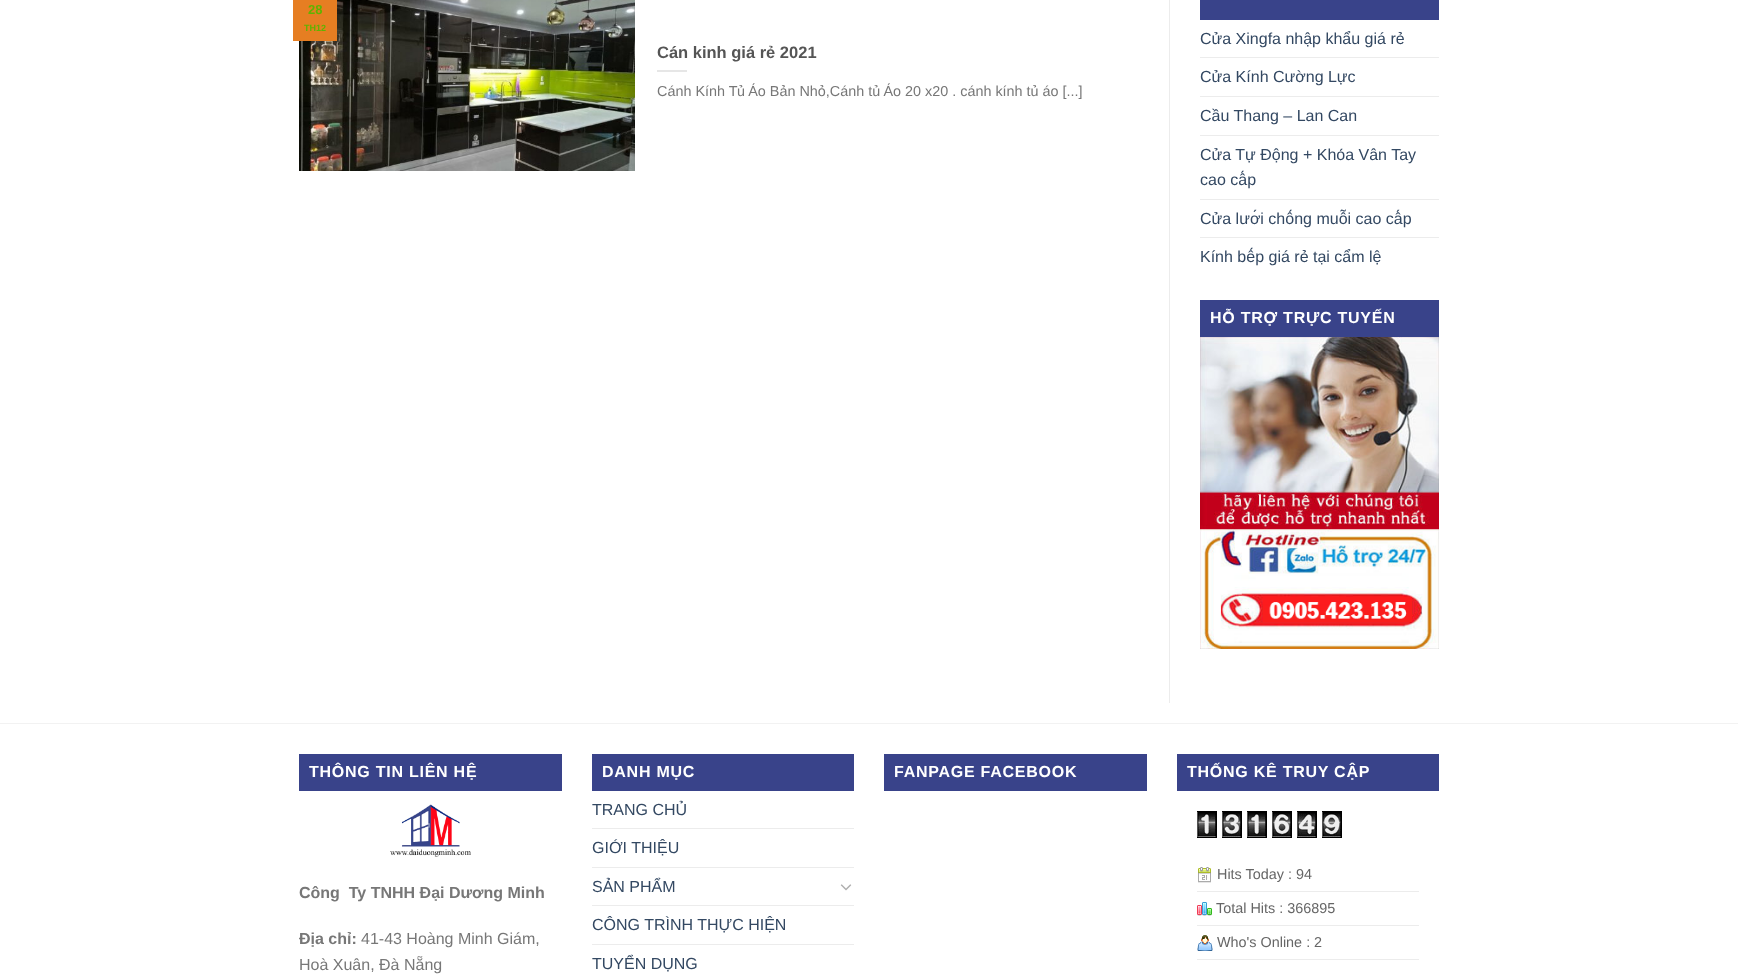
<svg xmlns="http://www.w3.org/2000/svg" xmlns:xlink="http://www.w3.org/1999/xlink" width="1738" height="978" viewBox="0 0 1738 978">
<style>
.cls-1{font:bold 13px Liberation Sans;fill:#60b301}
.cls-2{font:bold 9px Liberation Sans;fill:#60b301}
.cls-3{font:bold 16.5px Liberation Sans;fill:#555555}
.cls-4{font:14.4px Liberation Sans;fill:#777777}
.cls-5{font:16px Liberation Sans;fill:#334862}
.cls-6{font:bold 16px Liberation Sans;letter-spacing:0.75px;fill:#ffffff}
.cls-7{font:bold 16px Liberation Sans;fill:#777777}
.cls-8{font:16px Liberation Sans;fill:#777777}
.cls-9{font:14.4px Liberation Sans;fill:#666666}
</style>
<rect width="100%" height="100%" fill="#ffffff"/>
<image xlink:href="image0.png" x="299" y="0" width="336" height="171"/>
<rect fill="#e67e22" x="293" y="0" width="44" height="41"/>
<rect fill="#e6e6e6" x="657" y="70" width="30" height="2"/>
<rect fill="#ececec" x="1169" y="0" width="1" height="703"/>
<rect fill="#39438a" x="1200" y="0" width="239" height="20"/>
<rect fill="#ececec" x="1200" y="57" width="239" height="1"/>
<rect fill="#ececec" x="1200" y="96" width="239" height="1"/>
<rect fill="#ececec" x="1200" y="135" width="239" height="1"/>
<rect fill="#ececec" x="1200" y="199" width="239" height="1"/>
<rect fill="#ececec" x="1200" y="237" width="239" height="1"/>
<rect fill="#39438a" x="1200" y="300" width="239" height="37"/>
<image xlink:href="image1.png" x="1200" y="337" width="239" height="312"/>
<rect fill="#f2f2f2" x="0" y="723" width="1738" height="1"/>
<rect fill="#39438a" x="299" y="754" width="263" height="37"/>
<image xlink:href="image2.png" x="390" y="804" width="81" height="53"/>
<rect fill="#39438a" x="592" y="754" width="262" height="37"/>
<rect fill="#ececec" x="592" y="828" width="262" height="1"/>
<rect fill="#ececec" x="592" y="867" width="262" height="1"/>
<image xlink:href="image3.png" x="840" y="884" width="12" height="7"/>
<rect fill="#ececec" x="592" y="905" width="262" height="1"/>
<rect fill="#ececec" x="592" y="944" width="262" height="1"/>
<rect fill="#39438a" x="884" y="754" width="263" height="37"/>
<rect fill="#39438a" x="1177" y="754" width="262" height="37"/>
<image xlink:href="image4.png" x="1197" y="811" width="20" height="27"/>
<image xlink:href="image5.png" x="1222" y="811" width="20" height="27"/>
<image xlink:href="image4.png" x="1247" y="811" width="20" height="27"/>
<image xlink:href="image6.png" x="1272" y="811" width="20" height="27"/>
<image xlink:href="image7.png" x="1297" y="811" width="20" height="27"/>
<image xlink:href="image8.png" x="1322" y="811" width="20" height="27"/>
<rect fill="#ececec" x="1197" y="891" width="222" height="1"/>
<image xlink:href="image9.png" x="1198" y="867" width="13" height="16"/>
<rect fill="#ececec" x="1197" y="925" width="222" height="1"/>
<image xlink:href="image10.png" x="1197" y="902" width="15" height="14"/>
<rect fill="#ececec" x="1197" y="959" width="222" height="1"/>
<image xlink:href="image11.png" x="1197" y="935" width="16" height="16"/>
<text class="cls-1" x="308" y="14">28</text>
<text class="cls-2" x="304" y="31">TH12</text>
<text class="cls-3" x="657" y="58">Cán kinh giá rẻ 2021</text>
<text class="cls-4" x="657" y="96">Cánh Kính Tủ Áo Bản Nhỏ,Cánh tủ Áo 20 x20 . cánh kính tủ áo [...]</text>
<text class="cls-5" x="1200" y="44">Cửa Xingfa nhập khẩu giá rẻ</text>
<text class="cls-5" x="1200" y="82">Cửa Kính Cường Lực</text>
<text class="cls-5" x="1200" y="121">Cầu Thang – Lan Can</text>
<text class="cls-5"><tspan x="1200" y="160">Cửa Tự Động + Khóa Vân Tay</tspan><tspan x="1200" y="185">cao cấp</tspan></text>
<text class="cls-5" x="1200" y="224">Cửa lưới chống muỗi cao cấp</text>
<text class="cls-5" x="1200" y="262">Kính bếp giá rẻ tại cẩm lệ</text>
<text class="cls-6" x="1210" y="323">HỖ TRỢ TRỰC TUYẾN</text>
<text class="cls-6" x="309" y="777">THÔNG TIN LIÊN HỆ</text>
<text class="cls-7" xml:space="preserve" x="299" y="898">Công  Ty TNHH Đại Dương Minh</text>
<text class="cls-7" x="299" y="944">Địa chỉ:</text>
<text class="cls-8" x="361" y="944">41-43 Hoàng Minh Giám,</text>
<text class="cls-8" x="299" y="970">Hoà Xuân, Đà Nẵng</text>
<text class="cls-6" x="602" y="777">DANH MỤC</text>
<text class="cls-5" x="592" y="815">TRANG CHỦ</text>
<text class="cls-5" x="592" y="853">GIỚI THIỆU</text>
<text class="cls-5" x="592" y="892">SẢN PHẨM</text>
<text class="cls-5" x="592" y="930">CÔNG TRÌNH THỰC HIỆN</text>
<text class="cls-5" x="592" y="969">TUYỂN DỤNG</text>
<text class="cls-6" x="894" y="777">FANPAGE FACEBOOK</text>
<text class="cls-6" x="1187" y="777">THỐNG KÊ TRUY CẬP</text>
<text class="cls-9" x="1217" y="879">Hits Today : 94</text>
<text class="cls-9" x="1216" y="913">Total Hits : 366895</text>
<text class="cls-9" x="1217" y="947">Who's Online : 2</text>
</svg>
